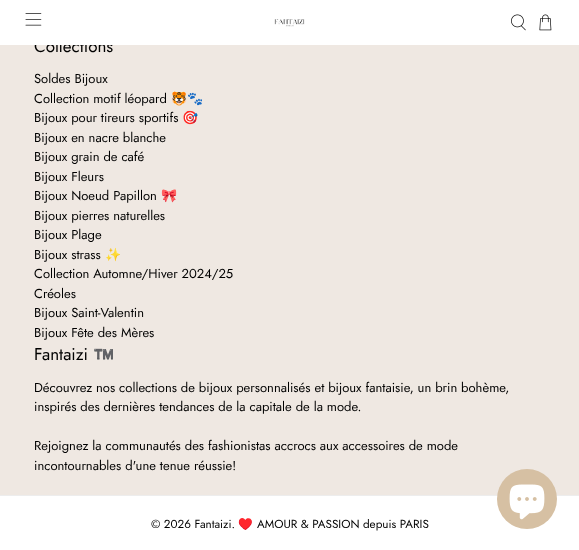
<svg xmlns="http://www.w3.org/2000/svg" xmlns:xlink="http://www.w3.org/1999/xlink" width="579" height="550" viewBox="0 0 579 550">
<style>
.cls-1{font:17px Jost;fill:#000000}
.cls-2{font:13px Jost;fill:#000000}
.cls-3{font:13px Noto Color Emoji;fill:#000000}
.cls-4{font:17px Noto Color Emoji;fill:#000000}
.cls-5{font:11.7px Jost;fill:#000000}
.cls-6{font:11.7px Noto Color Emoji;fill:#000000}
</style>
<rect width="100%" height="100%" fill="#ffffff"/>
<image xlink:href="image0.png" x="25" y="13" width="17" height="13"/>
<image xlink:href="image1.png" x="274" y="19" width="31" height="8"/>
<image xlink:href="image2.png" x="511" y="14" width="15" height="17"/>
<image xlink:href="image3.png" x="539" y="14" width="13" height="17"/>
<rect fill="#efe8e2" x="0" y="45" width="579" height="450"/>
<rect fill="#ededed" x="0" y="495" width="579" height="1"/>
<circle fill="#d6c0a3" cx="527" cy="499" r="30"/>
<image xlink:href="image4.png" x="509" y="484" width="36" height="36"/>
<text class="cls-1" x="34" y="52">Collections</text>
<rect fill="#ffffff" x="34" y="38" width="78" height="7"/>
<text class="cls-2"><tspan x="34" y="83">Soldes Bijoux</tspan><tspan x="34" y="103">Collection motif léopard</tspan></text>
<text class="cls-3" x="171" y="103">🐯🐾</text>
<text class="cls-2" x="34" y="122">Bijoux pour tireurs sportifs</text>
<text class="cls-3" x="182" y="122">🎯</text>
<text class="cls-2"><tspan x="34" y="142">Bijoux en nacre blanche</tspan><tspan x="34" y="161">Bijoux grain de café</tspan><tspan x="34" y="181">Bijoux Fleurs</tspan><tspan x="34" y="200">Bijoux Noeud Papillon</tspan></text>
<text class="cls-3" x="161" y="200">🎀</text>
<text class="cls-2"><tspan x="34" y="220">Bijoux pierres naturelles</tspan><tspan x="34" y="239">Bijoux Plage</tspan><tspan x="34" y="259">Bijoux strass</tspan></text>
<text class="cls-3" x="105" y="259">✨</text>
<text class="cls-2"><tspan x="34" y="278">Collection Automne/Hiver 2024/25</tspan><tspan x="34" y="298">Créoles</tspan><tspan x="34" y="317">Bijoux Saint-Valentin</tspan><tspan x="34" y="337">Bijoux Fête des Mères</tspan></text>
<text class="cls-1" x="34" y="360">Fantaizi</text>
<text class="cls-4" x="93" y="360">™️</text>
<text class="cls-2"><tspan x="34" y="392">Découvrez nos collections de bijoux personnalisés et bijoux fantaisie, un brin bohème,</tspan><tspan x="34" y="411">inspirés des dernières tendances de la capitale de la mode.</tspan></text>
<text class="cls-2"><tspan x="34" y="450">Rejoignez la communautés des fashionistas accrocs aux accessoires de mode</tspan><tspan x="34" y="470">incontournables d'une tenue réussie!</tspan></text>
<text class="cls-5" x="151" y="528">© 2026 Fantaizi.</text>
<text class="cls-6" x="238" y="528">♥️</text>
<text class="cls-5" x="257" y="528">AMOUR &amp; PASSION depuis PARIS</text>
</svg>
